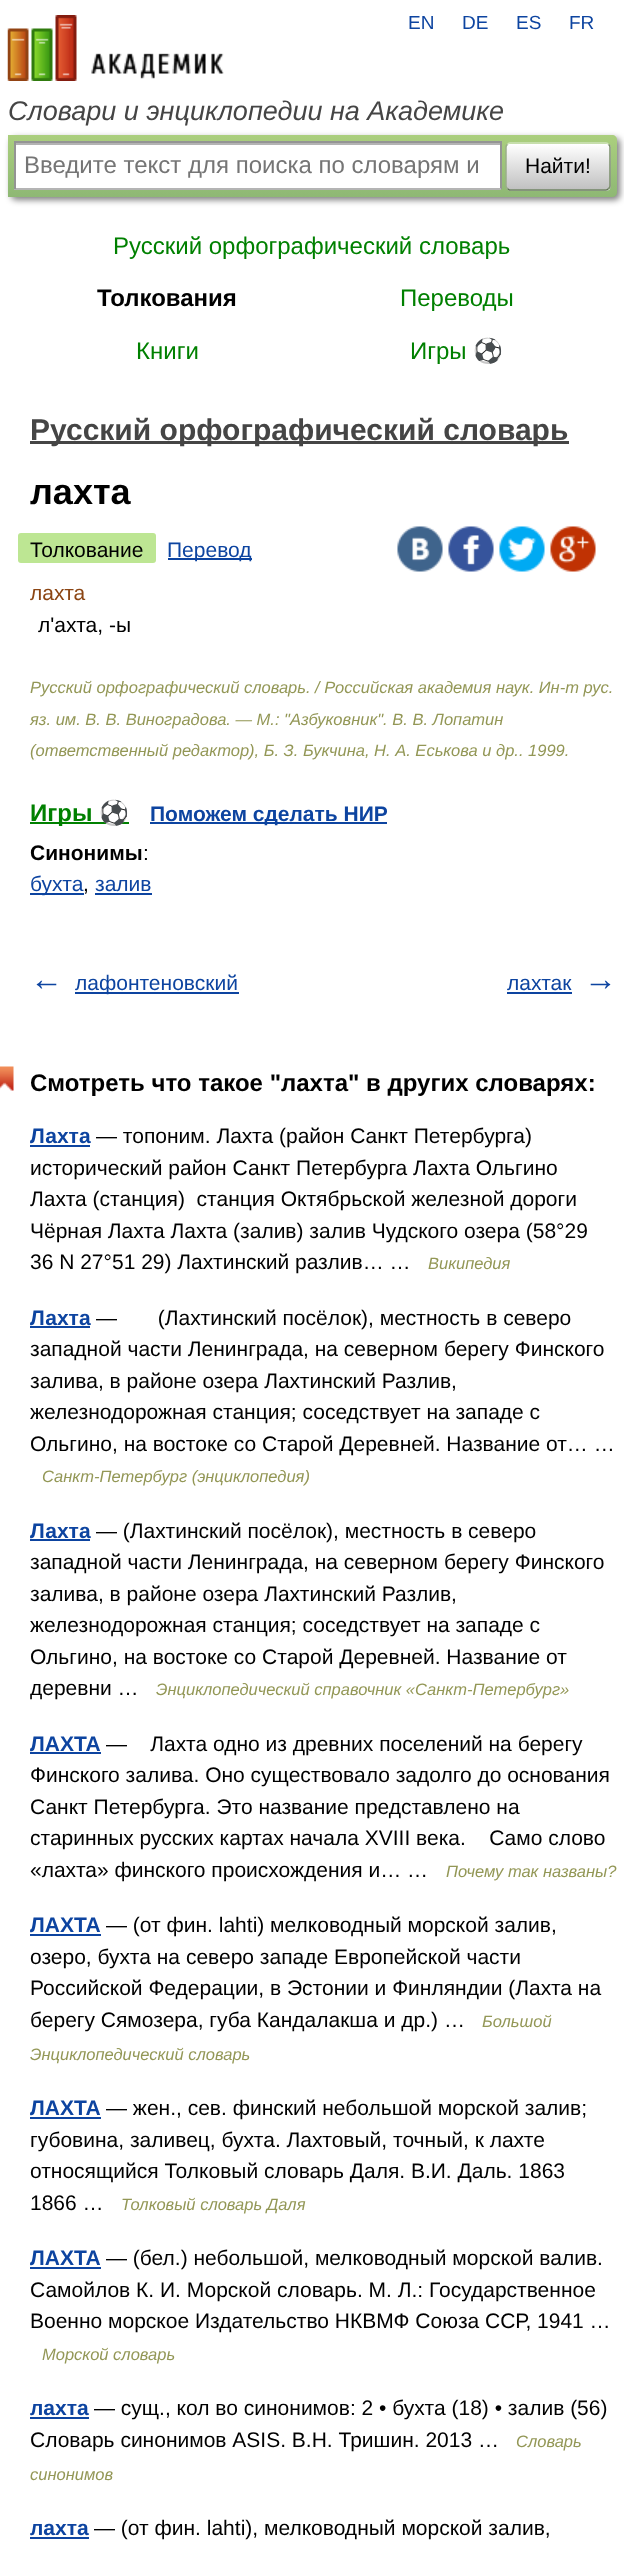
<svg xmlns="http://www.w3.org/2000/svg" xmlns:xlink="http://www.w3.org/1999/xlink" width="624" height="2549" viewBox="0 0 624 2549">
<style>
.cls-1{font:19px Liberation Sans;fill:#0d44a0}
.cls-2{font:italic 27px Liberation Sans;fill:#454545}
.cls-3{font:24px Liberation Sans;fill:#757575}
.cls-4{font:21px Liberation Sans;fill:#000000}
.cls-5{font:24px Liberation Sans;fill:#008000}
.cls-6{font:bold 24px Liberation Sans;fill:#000000}
.cls-7{font:24px Noto Color Emoji;fill:#008000}
.cls-8{font:bold 30px Liberation Sans;fill:#454545}
.cls-9{font:bold 36px Liberation Sans;fill:#000000}
.cls-10{font:21px Liberation Sans;fill:#0d44a0}
.cls-11{font:21px Liberation Sans;fill:#8b4513}
.cls-12{font:italic 16.5px Liberation Sans;fill:#939756}
.cls-13{font:bold 24px Liberation Sans;fill:#008000}
.cls-14{font:bold 24px Noto Color Emoji;fill:#008000}
.cls-15{font:bold 21px Liberation Sans;fill:#0d44a0}
.cls-16{font:bold 21px Liberation Sans;fill:#000000}
.cls-17{font:bold 33px Liberation Sans;fill:#0d44a0}
</style>
<defs>
<linearGradient id="g1" gradientUnits="userSpaceOnUse" x1="312" y1="135" x2="312" y2="197"><stop offset="0" stop-color="#abcf7e"/><stop offset="1" stop-color="#8eb874"/></linearGradient>
<clipPath id="clip1"><rect x="506" y="143" width="105" height="48" rx="5"/></clipPath>
<linearGradient id="g2" gradientUnits="userSpaceOnUse" x1="558" y1="144" x2="558" y2="189"><stop offset="0" stop-color="#ffffff"/><stop offset="1" stop-color="#c1c1c1"/></linearGradient>
<linearGradient id="g3" gradientUnits="userSpaceOnUse" x1="558" y1="189" x2="558" y2="234"><stop offset="0" stop-color="#ffffff"/><stop offset="1" stop-color="#c1c1c1"/></linearGradient>
</defs>
<rect width="100%" height="100%" fill="#ffffff"/>
<image xlink:href="image0.png" x="7" y="15" width="217" height="66"/>
<rect fill="#000000" fill-opacity="0.5" filter="blur(3px)" x="11" y="138" width="609" height="62" rx="5"/>
<path fill="url(#g1)" d="M8 135H612C615 135 617 137 617 140V192C617 195 615 197 612 197H8Z"/>
<rect fill="#ffffff" x="16" y="145" width="484" height="43"/>
<rect fill="#b3b3b3" x="15" y="143" width="485" height="2"/>
<rect fill="#949494" x="14" y="141" width="487" height="2"/>
<rect fill="#949494" x="500" y="141" width="2" height="48"/>
<rect fill="#b4b4b4" x="14" y="188" width="487" height="2"/>
<rect fill="#949494" x="14" y="141" width="2" height="48"/>
<g clip-path="url(#clip1)">
<rect fill="url(#g2)" x="506" y="144" width="105" height="45"/>
<rect fill="url(#g3)" x="506" y="189" width="105" height="2"/>
</g>
<path fill="none" stroke="#d1e4bc" stroke-width="1.5" d="M507.5 144.5C508 143.5 509 143 510 143H606C607 143 608 143.5 608.5 144.5"/>
<path fill="none" stroke="#7a8e69" stroke-width="1.5" d="M608.5 144.5C609.5 145 610 146 610 147V186C610 187 609.5 188 608.5 188.5"/>
<path fill="none" stroke="#5d7250" stroke-width="1.5" d="M608.5 188.5C608 189.5 607 190 606 190H510C509 190 508 189.5 507.5 188.5"/>
<path fill="none" stroke="#9aae89" stroke-width="1.5" d="M507.5 188.5C506.5 188 506 187 506 186V147C506 146 506.5 145 507.5 144.5"/>
<rect fill="#454545" x="30" y="441" width="539" height="3"/>
<rect fill="#bde693" x="18" y="533" width="138" height="30" rx="3"/>
<rect fill="#0d44a0" x="168" y="558" width="84" height="2"/>
<image xlink:href="image1.png" x="397" y="526" width="46" height="46"/>
<image xlink:href="image2.png" x="448" y="526" width="46" height="46"/>
<image xlink:href="image3.png" x="499" y="526" width="46" height="46"/>
<image xlink:href="image4.png" x="550" y="526" width="46" height="46"/>
<rect fill="#008000" x="30" y="822" width="99" height="2"/>
<rect fill="#0d44a0" x="150" y="822" width="237" height="2"/>
<rect fill="#0d44a0" x="30" y="893" width="54" height="2"/>
<rect fill="#0d44a0" x="95" y="893" width="57" height="2"/>
<rect fill="#0d44a0" x="75" y="992" width="164" height="2"/>
<rect fill="#0d44a0" x="507" y="992" width="65" height="2"/>
<image xlink:href="image5.png" x="0" y="1066" width="14" height="25"/>
<rect fill="#0d44a0" x="30" y="1145" width="60" height="2"/>
<rect fill="#0d44a0" x="30" y="1326" width="60" height="2"/>
<rect fill="#0d44a0" x="30" y="1539" width="60" height="2"/>
<rect fill="#0d44a0" x="30" y="1752" width="71" height="2"/>
<rect fill="#0d44a0" x="30" y="1934" width="71" height="2"/>
<rect fill="#0d44a0" x="30" y="2117" width="71" height="2"/>
<rect fill="#0d44a0" x="30" y="2267" width="71" height="2"/>
<rect fill="#0d44a0" x="30" y="2417" width="59" height="2"/>
<rect fill="#0d44a0" x="30" y="2537" width="59" height="2"/>
<text class="cls-1" x="408" y="29">EN</text>
<text class="cls-1" x="462" y="29">DE</text>
<text class="cls-1" x="516" y="29">ES</text>
<text class="cls-1" x="569" y="29">FR</text>
<text class="cls-2" x="8" y="120">Словари и энциклопедии на Академике</text>
<text class="cls-3" x="24" y="173">Введите текст для поиска по словарям и</text>
<text class="cls-4" x="525" y="173">Найти!</text>
<text class="cls-5" x="113" y="254">Русский орфографический словарь</text>
<text class="cls-6" x="97" y="306">Толкования</text>
<text class="cls-5" x="400" y="306">Переводы</text>
<text class="cls-5" x="136" y="359">Книги</text>
<text class="cls-5" x="410" y="359">Игры</text>
<text class="cls-7" x="473" y="359">⚽</text>
<text class="cls-8" x="30" y="440">Русский орфографический словарь</text>
<text class="cls-9" x="30" y="504">лахта</text>
<text class="cls-4" x="30" y="557">Толкование</text>
<text class="cls-10" x="167" y="557">Перевод</text>
<text class="cls-11" x="30" y="600">лахта</text>
<text class="cls-4" x="38" y="632">л'ахта, -ы</text>
<text class="cls-12"><tspan x="30" y="693">Русский орфографический словарь. / Российская академия наук. Ин-т рус.</tspan><tspan x="30" y="725">яз. им. В. В. Виноградова. — М.: "Азбуковник". В. В. Лопатин</tspan><tspan x="30" y="756">(ответственный редактор), Б. З. Букчина, Н. А. Еськова и др.. 1999.</tspan></text>
<text class="cls-13" x="30" y="821">Игры</text>
<text class="cls-14" x="99" y="821">⚽</text>
<text class="cls-15" x="150" y="821">Поможем сделать НИР</text>
<text class="cls-16" x="30" y="860">Синонимы</text>
<text class="cls-4" x="143" y="860">:</text>
<text class="cls-10" x="30" y="891">бухта</text>
<text class="cls-4" x="83" y="891">,</text>
<text class="cls-10" x="95" y="891">залив</text>
<text class="cls-17" x="30" y="990">←</text>
<text class="cls-10" x="75" y="990">лафонтеновский</text>
<text class="cls-10" x="507" y="990">лахтак</text>
<text class="cls-17" x="584" y="990">→</text>
<text class="cls-6" x="30" y="1091">Смотреть что такое "лахта" в других словарях:</text>
<text class="cls-15" x="30" y="1143">Лахта</text>
<text class="cls-4" x="96" y="1143">— топоним. Лахта (район Санкт Петербурга)</text>
<text class="cls-4" xml:space="preserve"><tspan x="30" y="1175">исторический район Санкт Петербурга Лахта Ольгино</tspan><tspan x="30" y="1206">Лахта (станция)  станция Октябрьской железной дороги</tspan><tspan x="30" y="1238">Чёрная Лахта Лахта (залив) залив Чудского озера (58°29</tspan><tspan x="30" y="1269">36 N 27°51 29) Лахтинский разлив… …</tspan></text>
<text class="cls-12" x="428" y="1269">Википедия</text>
<text class="cls-15" x="30" y="1325">Лахта</text>
<text class="cls-4" xml:space="preserve" x="96" y="1325">—       (Лахтинский посёлок), местность в северо</text>
<text class="cls-4"><tspan x="30" y="1356">западной части Ленинграда, на северном берегу Финского</tspan><tspan x="30" y="1388">залива, в районе озера Лахтинский Разлив,</tspan><tspan x="30" y="1419">железнодорожная станция; соседствует на западе с</tspan><tspan x="30" y="1451">Ольгино, на востоке со Старой Деревней. Название от… …</tspan></text>
<text class="cls-12" x="42" y="1482">Санкт-Петербург (энциклопедия)</text>
<text class="cls-15" x="30" y="1538">Лахта</text>
<text class="cls-4" x="96" y="1538">— (Лахтинский посёлок), местность в северо</text>
<text class="cls-4"><tspan x="30" y="1569">западной части Ленинграда, на северном берегу Финского</tspan><tspan x="30" y="1601">залива, в районе озера Лахтинский Разлив,</tspan><tspan x="30" y="1632">железнодорожная станция; соседствует на западе с</tspan><tspan x="30" y="1664">Ольгино, на востоке со Старой Деревней. Название от</tspan><tspan x="30" y="1695">деревни …</tspan></text>
<text class="cls-12" x="156" y="1695">Энциклопедический справочник «Санкт-Петербург»</text>
<text class="cls-15" x="30" y="1751">ЛАХТА</text>
<text class="cls-4" xml:space="preserve" x="106" y="1751">—    Лахта одно из древних поселений на берегу</text>
<text class="cls-4" xml:space="preserve"><tspan x="30" y="1782">Финского залива. Оно существовало задолго до основания</tspan><tspan x="30" y="1814">Санкт Петербурга. Это название представлено на</tspan><tspan x="30" y="1845">старинных русских картах начала XVIII века.    Само слово</tspan><tspan x="30" y="1877">«лахта» финского происхождения и… …</tspan></text>
<text class="cls-12" x="446" y="1877">Почему так названы?</text>
<text class="cls-15" x="30" y="1932">ЛАХТА</text>
<text class="cls-4" x="106" y="1932">— (от фин. lahti) мелководный морской залив,</text>
<text class="cls-4"><tspan x="30" y="1964">озеро, бухта на северо западе Европейской части</tspan><tspan x="30" y="1995">Российской Федерации, в Эстонии и Финляндии (Лахта на</tspan><tspan x="30" y="2027">берегу Сямозера, губа Кандалакша и др.) …</tspan></text>
<text class="cls-12" x="482" y="2027">Большой</text>
<text class="cls-12" x="30" y="2060">Энциклопедический словарь</text>
<text class="cls-15" x="30" y="2115">ЛАХТА</text>
<text class="cls-4" x="106" y="2115">— жен., сев. финский небольшой морской залив;</text>
<text class="cls-4"><tspan x="30" y="2147">губовина, заливец, бухта. Лахтовый, точный, к лахте</tspan><tspan x="30" y="2178">относящийся Толковый словарь Даля. В.И. Даль. 1863</tspan><tspan x="30" y="2210">1866 …</tspan></text>
<text class="cls-12" x="121" y="2210">Толковый словарь Даля</text>
<text class="cls-15" x="30" y="2265">ЛАХТА</text>
<text class="cls-4" x="106" y="2265">— (бел.) небольшой, мелководный морской валив.</text>
<text class="cls-4"><tspan x="30" y="2297">Самойлов К. И. Морской словарь. М. Л.: Государственное</tspan><tspan x="30" y="2328">Военно морское Издательство НКВМФ Союза ССР, 1941 …</tspan></text>
<text class="cls-12" x="42" y="2360">Морской словарь</text>
<text class="cls-15" x="30" y="2415">лахта</text>
<text class="cls-4" x="94" y="2415">— сущ., кол во синонимов: 2 • бухта (18) • залив (56)</text>
<text class="cls-4" x="30" y="2447">Словарь синонимов ASIS. В.Н. Тришин. 2013 …</text>
<text class="cls-12" x="516" y="2447">Словарь</text>
<text class="cls-12" x="30" y="2480">синонимов</text>
<text class="cls-15" x="30" y="2535">лахта</text>
<text class="cls-4" x="94" y="2535">— (от фин. lahti), мелководный морской залив,</text>
</svg>
